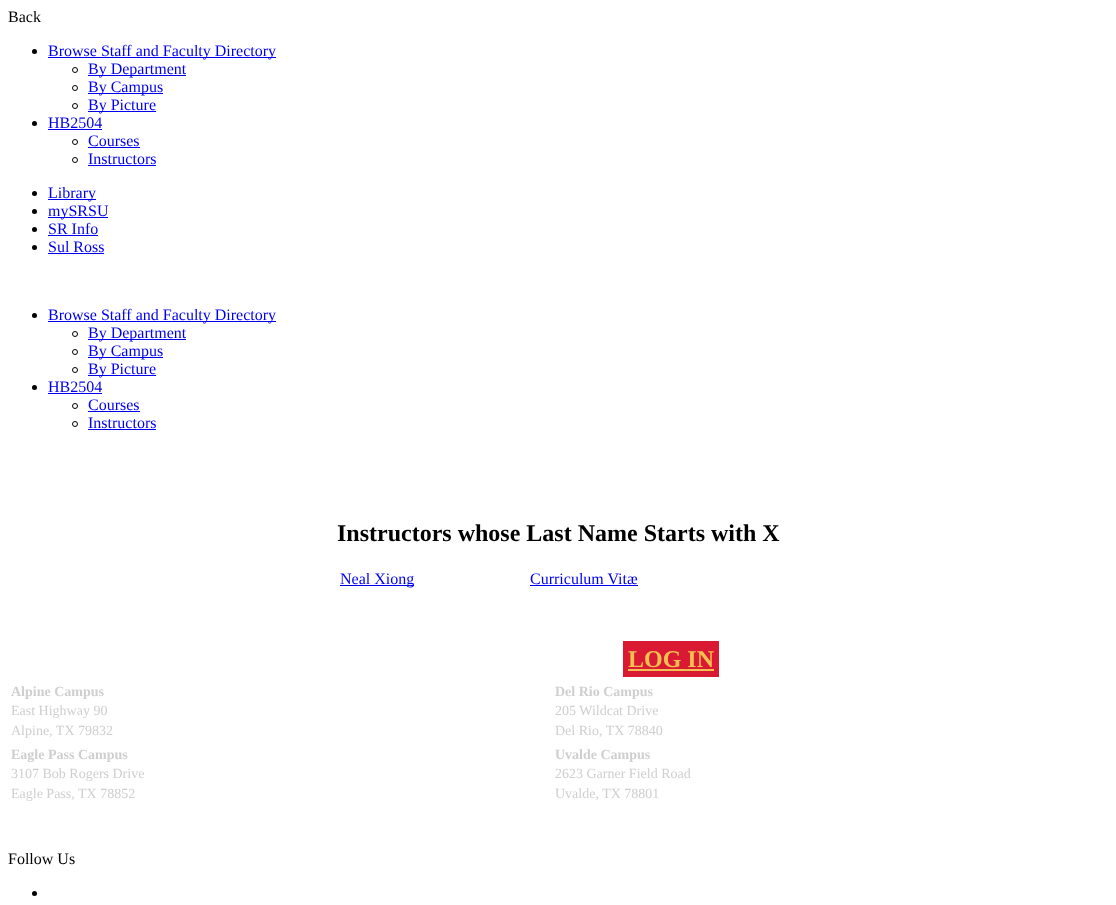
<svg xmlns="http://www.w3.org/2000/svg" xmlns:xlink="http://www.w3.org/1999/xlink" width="1116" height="905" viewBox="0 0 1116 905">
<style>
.cls-1{font:16px Liberation Serif;fill:#000000}
.cls-2{font:16px Liberation Serif;fill:#0000ee}
.cls-3{font:bold 24px Liberation Serif;fill:#000000}
.cls-4{font:bold 24px Liberation Serif;fill:#f1c050}
.cls-5{font:bold 14px Liberation Serif;fill:#cfcfcf}
.cls-6{font:14px Liberation Serif;fill:#cfcfcf}
</style>
<rect width="100%" height="100%" fill="#ffffff"/>
<circle fill="#000000" cx="34.5" cy="51.5" r="2.5"/>
<rect fill="#0000ee" x="48" y="57" width="228" height="1"/>
<circle fill="none" stroke="#000000" cx="75" cy="70" r="2.5"/>
<rect fill="#0000ee" x="88" y="75" width="98" height="1"/>
<circle fill="none" stroke="#000000" cx="75" cy="88" r="2.5"/>
<rect fill="#0000ee" x="88" y="93" width="75" height="1"/>
<circle fill="none" stroke="#000000" cx="75" cy="106" r="2.5"/>
<rect fill="#0000ee" x="88" y="111" width="68" height="1"/>
<circle fill="#000000" cx="34.5" cy="123.5" r="2.5"/>
<rect fill="#0000ee" x="48" y="129" width="54" height="1"/>
<circle fill="none" stroke="#000000" cx="75" cy="142" r="2.5"/>
<rect fill="#0000ee" x="88" y="147" width="52" height="1"/>
<circle fill="none" stroke="#000000" cx="75" cy="160" r="2.5"/>
<rect fill="#0000ee" x="88" y="165" width="68" height="1"/>
<circle fill="#000000" cx="34.5" cy="193.5" r="2.5"/>
<rect fill="#0000ee" x="48" y="199" width="48" height="1"/>
<circle fill="#000000" cx="34.5" cy="211.5" r="2.5"/>
<rect fill="#0000ee" x="48" y="217" width="60" height="1"/>
<circle fill="#000000" cx="34.5" cy="229.5" r="2.5"/>
<rect fill="#0000ee" x="48" y="235" width="50" height="1"/>
<circle fill="#000000" cx="34.5" cy="247.5" r="2.5"/>
<rect fill="#0000ee" x="48" y="253" width="56" height="1"/>
<circle fill="#000000" cx="34.5" cy="315.5" r="2.5"/>
<rect fill="#0000ee" x="48" y="321" width="228" height="1"/>
<circle fill="none" stroke="#000000" cx="75" cy="334" r="2.5"/>
<rect fill="#0000ee" x="88" y="339" width="98" height="1"/>
<circle fill="none" stroke="#000000" cx="75" cy="352" r="2.5"/>
<rect fill="#0000ee" x="88" y="357" width="75" height="1"/>
<circle fill="none" stroke="#000000" cx="75" cy="370" r="2.5"/>
<rect fill="#0000ee" x="88" y="375" width="68" height="1"/>
<circle fill="#000000" cx="34.5" cy="387.5" r="2.5"/>
<rect fill="#0000ee" x="48" y="393" width="54" height="1"/>
<circle fill="none" stroke="#000000" cx="75" cy="406" r="2.5"/>
<rect fill="#0000ee" x="88" y="411" width="52" height="1"/>
<circle fill="none" stroke="#000000" cx="75" cy="424" r="2.5"/>
<rect fill="#0000ee" x="88" y="429" width="68" height="1"/>
<rect fill="#0000ee" x="340" y="585" width="74" height="1"/>
<rect fill="#0000ee" x="530" y="585" width="108" height="1"/>
<rect fill="#da1a32" x="623" y="641" width="96" height="36"/>
<rect fill="#f1c050" x="628" y="669" width="86" height="2"/>
<circle fill="#000000" cx="34.5" cy="893.5" r="2.5"/>
<text class="cls-1" x="8" y="22">Back</text>
<text class="cls-2" x="48" y="56">Browse Staff and Faculty Directory</text>
<text class="cls-2"><tspan x="88" y="74">By Department</tspan><tspan x="88" y="92">By Campus</tspan><tspan x="88" y="110">By Picture</tspan></text>
<text class="cls-2" x="48" y="128">HB2504</text>
<text class="cls-2"><tspan x="88" y="146">Courses</tspan><tspan x="88" y="164">Instructors</tspan></text>
<text class="cls-2"><tspan x="48" y="198">Library</tspan><tspan x="48" y="216">mySRSU</tspan><tspan x="48" y="234">SR Info</tspan><tspan x="48" y="252">Sul Ross</tspan></text>
<text class="cls-2" x="48" y="320">Browse Staff and Faculty Directory</text>
<text class="cls-2"><tspan x="88" y="338">By Department</tspan><tspan x="88" y="356">By Campus</tspan><tspan x="88" y="374">By Picture</tspan></text>
<text class="cls-2" x="48" y="392">HB2504</text>
<text class="cls-2"><tspan x="88" y="410">Courses</tspan><tspan x="88" y="428">Instructors</tspan></text>
<text class="cls-3" x="337" y="541">Instructors whose Last Name Starts with X</text>
<text class="cls-2" x="340" y="584">Neal Xiong</text>
<text class="cls-2" x="530" y="584">Curriculum Vitæ</text>
<text class="cls-4" x="628" y="667">LOG IN</text>
<text class="cls-5" x="11" y="696">Alpine Campus</text>
<text class="cls-6"><tspan x="11" y="715">East Highway 90</tspan><tspan x="11" y="735">Alpine, TX 79832</tspan></text>
<text class="cls-5" x="555" y="696">Del Rio Campus</text>
<text class="cls-6"><tspan x="555" y="715">205 Wildcat Drive</tspan><tspan x="555" y="735">Del Rio, TX 78840</tspan></text>
<text class="cls-5" x="11" y="759">Eagle Pass Campus</text>
<text class="cls-6"><tspan x="11" y="778">3107 Bob Rogers Drive</tspan><tspan x="11" y="798">Eagle Pass, TX 78852</tspan></text>
<text class="cls-5" x="555" y="759">Uvalde Campus</text>
<text class="cls-6"><tspan x="555" y="778">2623 Garner Field Road</tspan><tspan x="555" y="798">Uvalde, TX 78801</tspan></text>
<text class="cls-1" x="8" y="864">Follow Us</text>
</svg>
